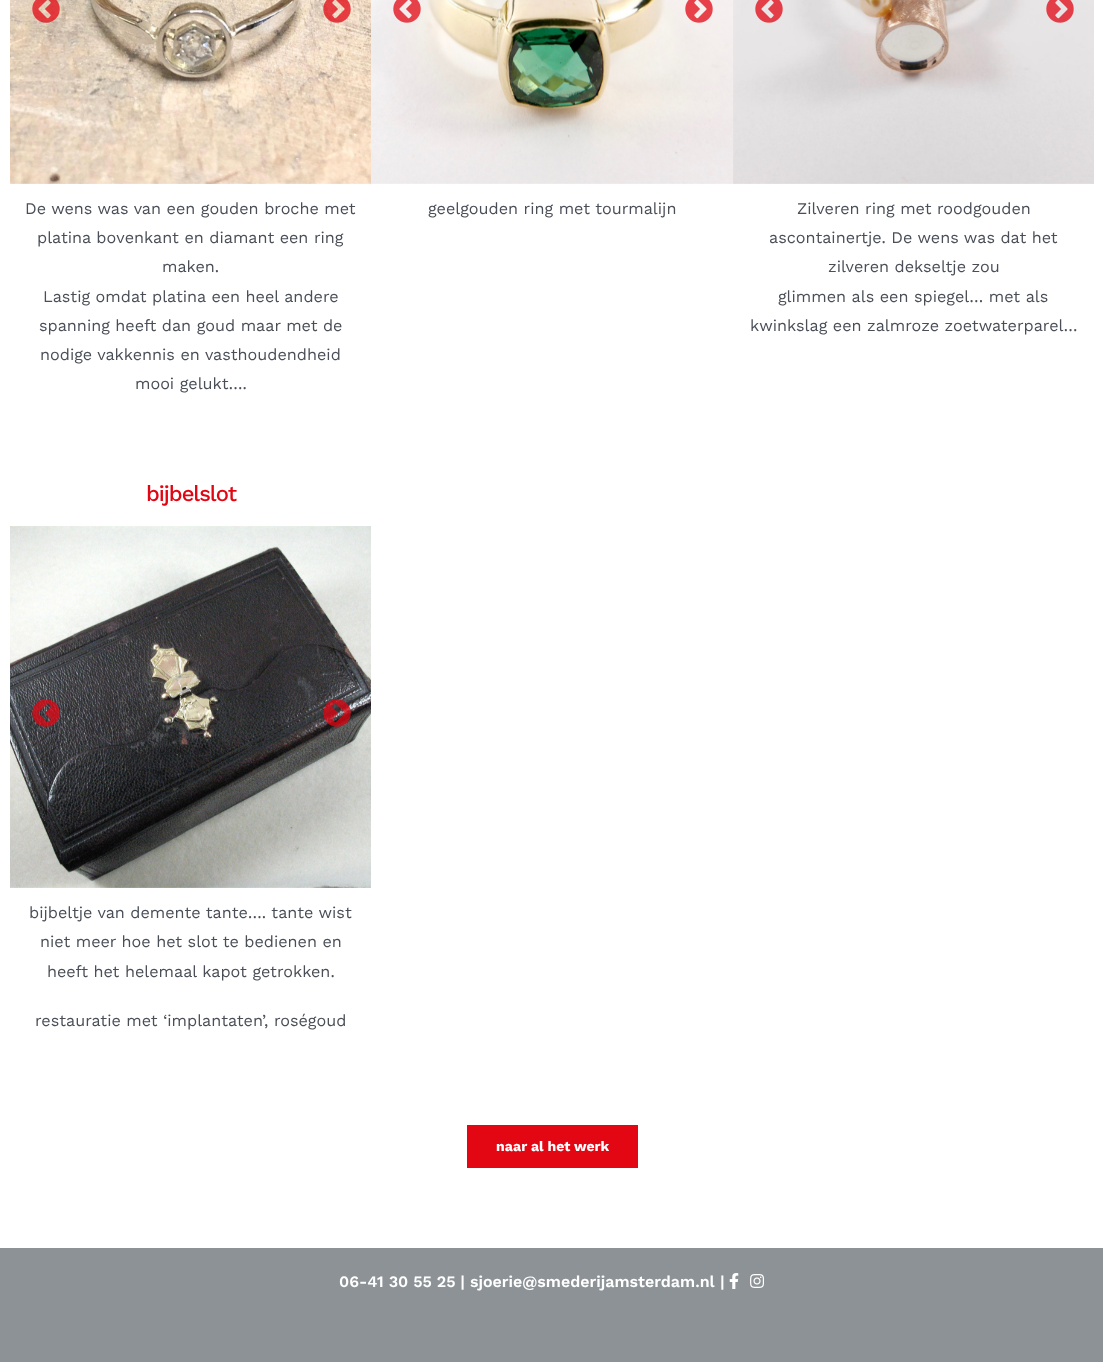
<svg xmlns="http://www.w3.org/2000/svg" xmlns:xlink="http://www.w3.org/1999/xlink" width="1103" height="1362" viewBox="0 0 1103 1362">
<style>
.cls-1{font:16.2px Work Sans;fill:#4a4e57}
.cls-2{font:500 22px Work Sans;letter-spacing:-1px;fill:#e20613}
.cls-3{font:bold 14px Work Sans;fill:#ffffff}
.cls-4{font:600 16px Work Sans;fill:#ffffff}
</style>
<rect width="100%" height="100%" fill="#ffffff"/>
<image xlink:href="image0.png" x="10" y="0" width="361" height="184"/>
<image xlink:href="image1.png" x="32" y="0" width="28" height="23"/>
<image xlink:href="image2.png" x="323" y="0" width="28" height="23"/>
<image xlink:href="image3.png" x="371" y="0" width="362" height="184"/>
<image xlink:href="image4.png" x="393" y="0" width="28" height="23"/>
<image xlink:href="image5.png" x="685" y="0" width="28" height="23"/>
<image xlink:href="image6.png" x="733" y="0" width="361" height="184"/>
<image xlink:href="image7.png" x="755" y="0" width="28" height="23"/>
<image xlink:href="image8.png" x="1046" y="0" width="28" height="23"/>
<image xlink:href="image9.png" x="10" y="526" width="361" height="362"/>
<image xlink:href="image10.png" x="32" y="699" width="28" height="28"/>
<image xlink:href="image11.png" x="323" y="699" width="28" height="28"/>
<rect fill="#e30613" x="467" y="1125" width="171" height="43"/>
<rect fill="#8d9296" x="0" y="1248" width="1103" height="114"/>
<image xlink:href="image12.png" x="729" y="1273" width="10" height="16"/>
<image xlink:href="image13.png" x="750" y="1274" width="14" height="14"/>
<text class="cls-1" x="25" y="214">De wens was van een gouden broche met</text>
<text class="cls-1" x="37" y="243">platina bovenkant en diamant een ring</text>
<text class="cls-1" x="162" y="272">maken.</text>
<text class="cls-1" x="43" y="302">Lastig omdat platina een heel andere</text>
<text class="cls-1" x="39" y="331">spanning heeft dan goud maar met de</text>
<text class="cls-1" x="40" y="360">nodige vakkennis en vasthoudendheid</text>
<text class="cls-1" x="135" y="389">mooi gelukt….</text>
<text class="cls-1" x="428" y="214">geelgouden ring met tourmalijn</text>
<text class="cls-1" x="797" y="214">Zilveren ring met roodgouden</text>
<text class="cls-1" x="769" y="243">ascontainertje. De wens was dat het</text>
<text class="cls-1" x="828" y="272">zilveren dekseltje zou</text>
<text class="cls-1" x="778" y="302">glimmen als een spiegel… met als</text>
<text class="cls-1" x="750" y="331">kwinkslag een zalmroze zoetwaterparel…</text>
<text class="cls-2" x="146" y="501">bijbelslot</text>
<text class="cls-1" x="29" y="918">bijbeltje van demente tante…. tante wist</text>
<text class="cls-1" x="40" y="947">niet meer hoe het slot te bedienen en</text>
<text class="cls-1" x="47" y="977">heeft het helemaal kapot getrokken.</text>
<text class="cls-1" x="35" y="1026">restauratie met ‘implantaten’, roségoud</text>
<text class="cls-3" x="496" y="1151">naar al het werk</text>
<text class="cls-4" x="339" y="1287">06-41 30 55 25 | sjoerie@smederijamsterdam.nl</text>
<text class="cls-4" x="720" y="1287">|</text>
</svg>
